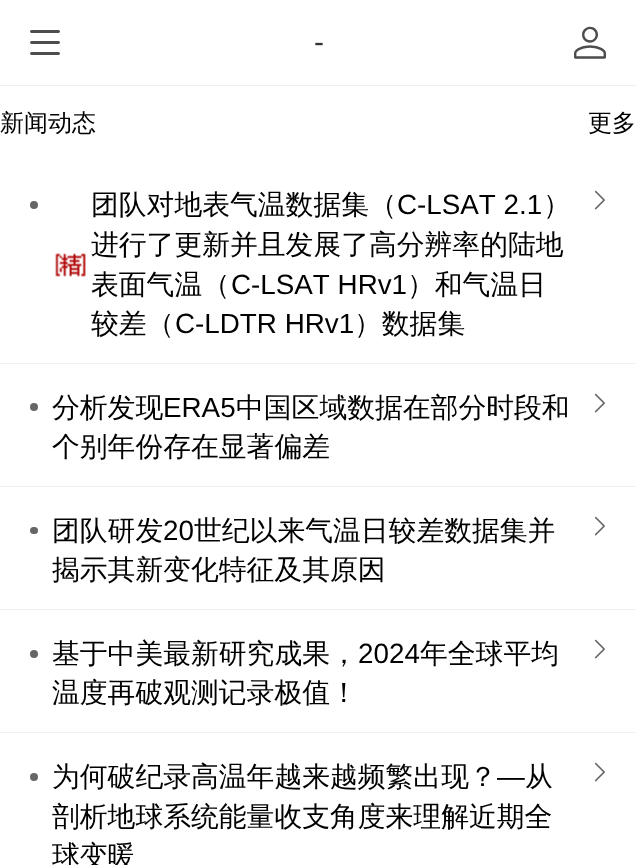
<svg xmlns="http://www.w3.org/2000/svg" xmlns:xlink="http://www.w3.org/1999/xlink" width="636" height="865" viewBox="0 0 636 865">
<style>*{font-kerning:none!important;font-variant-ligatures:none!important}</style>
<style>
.cls-1{font:30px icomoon;fill:#4d4d4d}
.cls-2{font:30px Liberation Sans;fill:#333333}
.cls-3{font:32px icomoon;fill:#4d4d4d}
.cls-4{font:500 24px WenQuanYi Zen Hei;fill:#000000}
.cls-5{font:500 27.8px WenQuanYi Zen Hei;fill:#000000}
.cls-6{font:27.8px Liberation Sans;fill:#000000}
</style>
<defs>
<clipPath id="clip1"><rect x="52" y="757" width="520" height="108"/></clipPath>
</defs>
<rect width="100%" height="100%" fill="#ffffff"/>
<rect fill="#eeeeee" x="0" y="85" width="636" height="1"/>
<circle fill="#666666" cx="34" cy="205" r="4"/>
<image xlink:href="image0.png" x="55" y="253" width="31" height="24"/>
<image xlink:href="image1.png" x="594" y="190" width="11" height="20"/>
<rect fill="#f0f0f0" x="0" y="363" width="636" height="1"/>
<circle fill="#666666" cx="34" cy="407" r="4"/>
<image xlink:href="image1.png" x="594" y="393" width="11" height="20"/>
<rect fill="#f0f0f0" x="0" y="486" width="636" height="1"/>
<rect fill="#666666" x="30" y="527" width="8" height="7" rx="3.5"/>
<image xlink:href="image1.png" x="594" y="516" width="11" height="20"/>
<rect fill="#f0f0f0" x="0" y="609" width="636" height="1"/>
<circle fill="#666666" cx="34" cy="654" r="4"/>
<image xlink:href="image1.png" x="594" y="639" width="11" height="20"/>
<rect fill="#f0f0f0" x="0" y="732" width="636" height="1"/>
<circle fill="#666666" cx="34" cy="777" r="4"/>
<image xlink:href="image1.png" x="594" y="762" width="11" height="20"/>
<text class="cls-1" x="30" y="55">򰌲</text>
<text class="cls-2" x="314" y="52">-</text>
<text class="cls-3" x="574" y="56">򰊈</text>
<text class="cls-4" x="0" y="131">新闻动态</text>
<text class="cls-4" x="588" y="131">更多</text>
<text class="cls-5" x="91" y="214">团队对地表气温数据集（</text>
<text class="cls-6" x="397" y="214">C-LSAT 2.1</text>
<text class="cls-5" x="543" y="214">）</text>
<text class="cls-5"><tspan x="91" y="254">进行了更新并且发展了高分辨率的陆地</tspan><tspan x="91" y="294">表面气温（</tspan></text>
<text class="cls-6" x="231" y="294">C-LSAT HRv1</text>
<text class="cls-5" x="407" y="294">）和气温日</text>
<text class="cls-5" x="91" y="333">较差（</text>
<text class="cls-6" x="175" y="333">C-LDTR HRv1</text>
<text class="cls-5" x="354" y="333">）数据集</text>
<text class="cls-5" x="52" y="417">分析发现</text>
<text class="cls-6" x="163" y="417">ERA5</text>
<text class="cls-5" x="236" y="417">中国区域数据在部分时段和</text>
<text class="cls-5" x="52" y="456">个别年份存在显著偏差</text>
<text class="cls-5" x="52" y="540">团队研发</text>
<text class="cls-6" x="163" y="540">20</text>
<text class="cls-5" x="194" y="540">世纪以来气温日较差数据集并</text>
<text class="cls-5" x="52" y="579">揭示其新变化特征及其原因</text>
<text class="cls-5" x="52" y="663">基于中美最新研究成果，</text>
<text class="cls-6" x="358" y="663">2024</text>
<text class="cls-5" x="420" y="663">年全球平均</text>
<text class="cls-5" x="52" y="702">温度再破观测记录极值！</text>
<text class="cls-5" x="52" y="786">为何破纪录高温年越来越频繁出现？</text>
<text class="cls-6" x="497" y="786">—</text>
<text class="cls-5" x="525" y="786">从</text>
<text class="cls-5" x="52" y="826">剖析地球系统能量收支角度来理解近期全</text>
<g clip-path="url(#clip1)">
<text class="cls-5" x="52" y="865">球变暖</text>
</g>
</svg>
